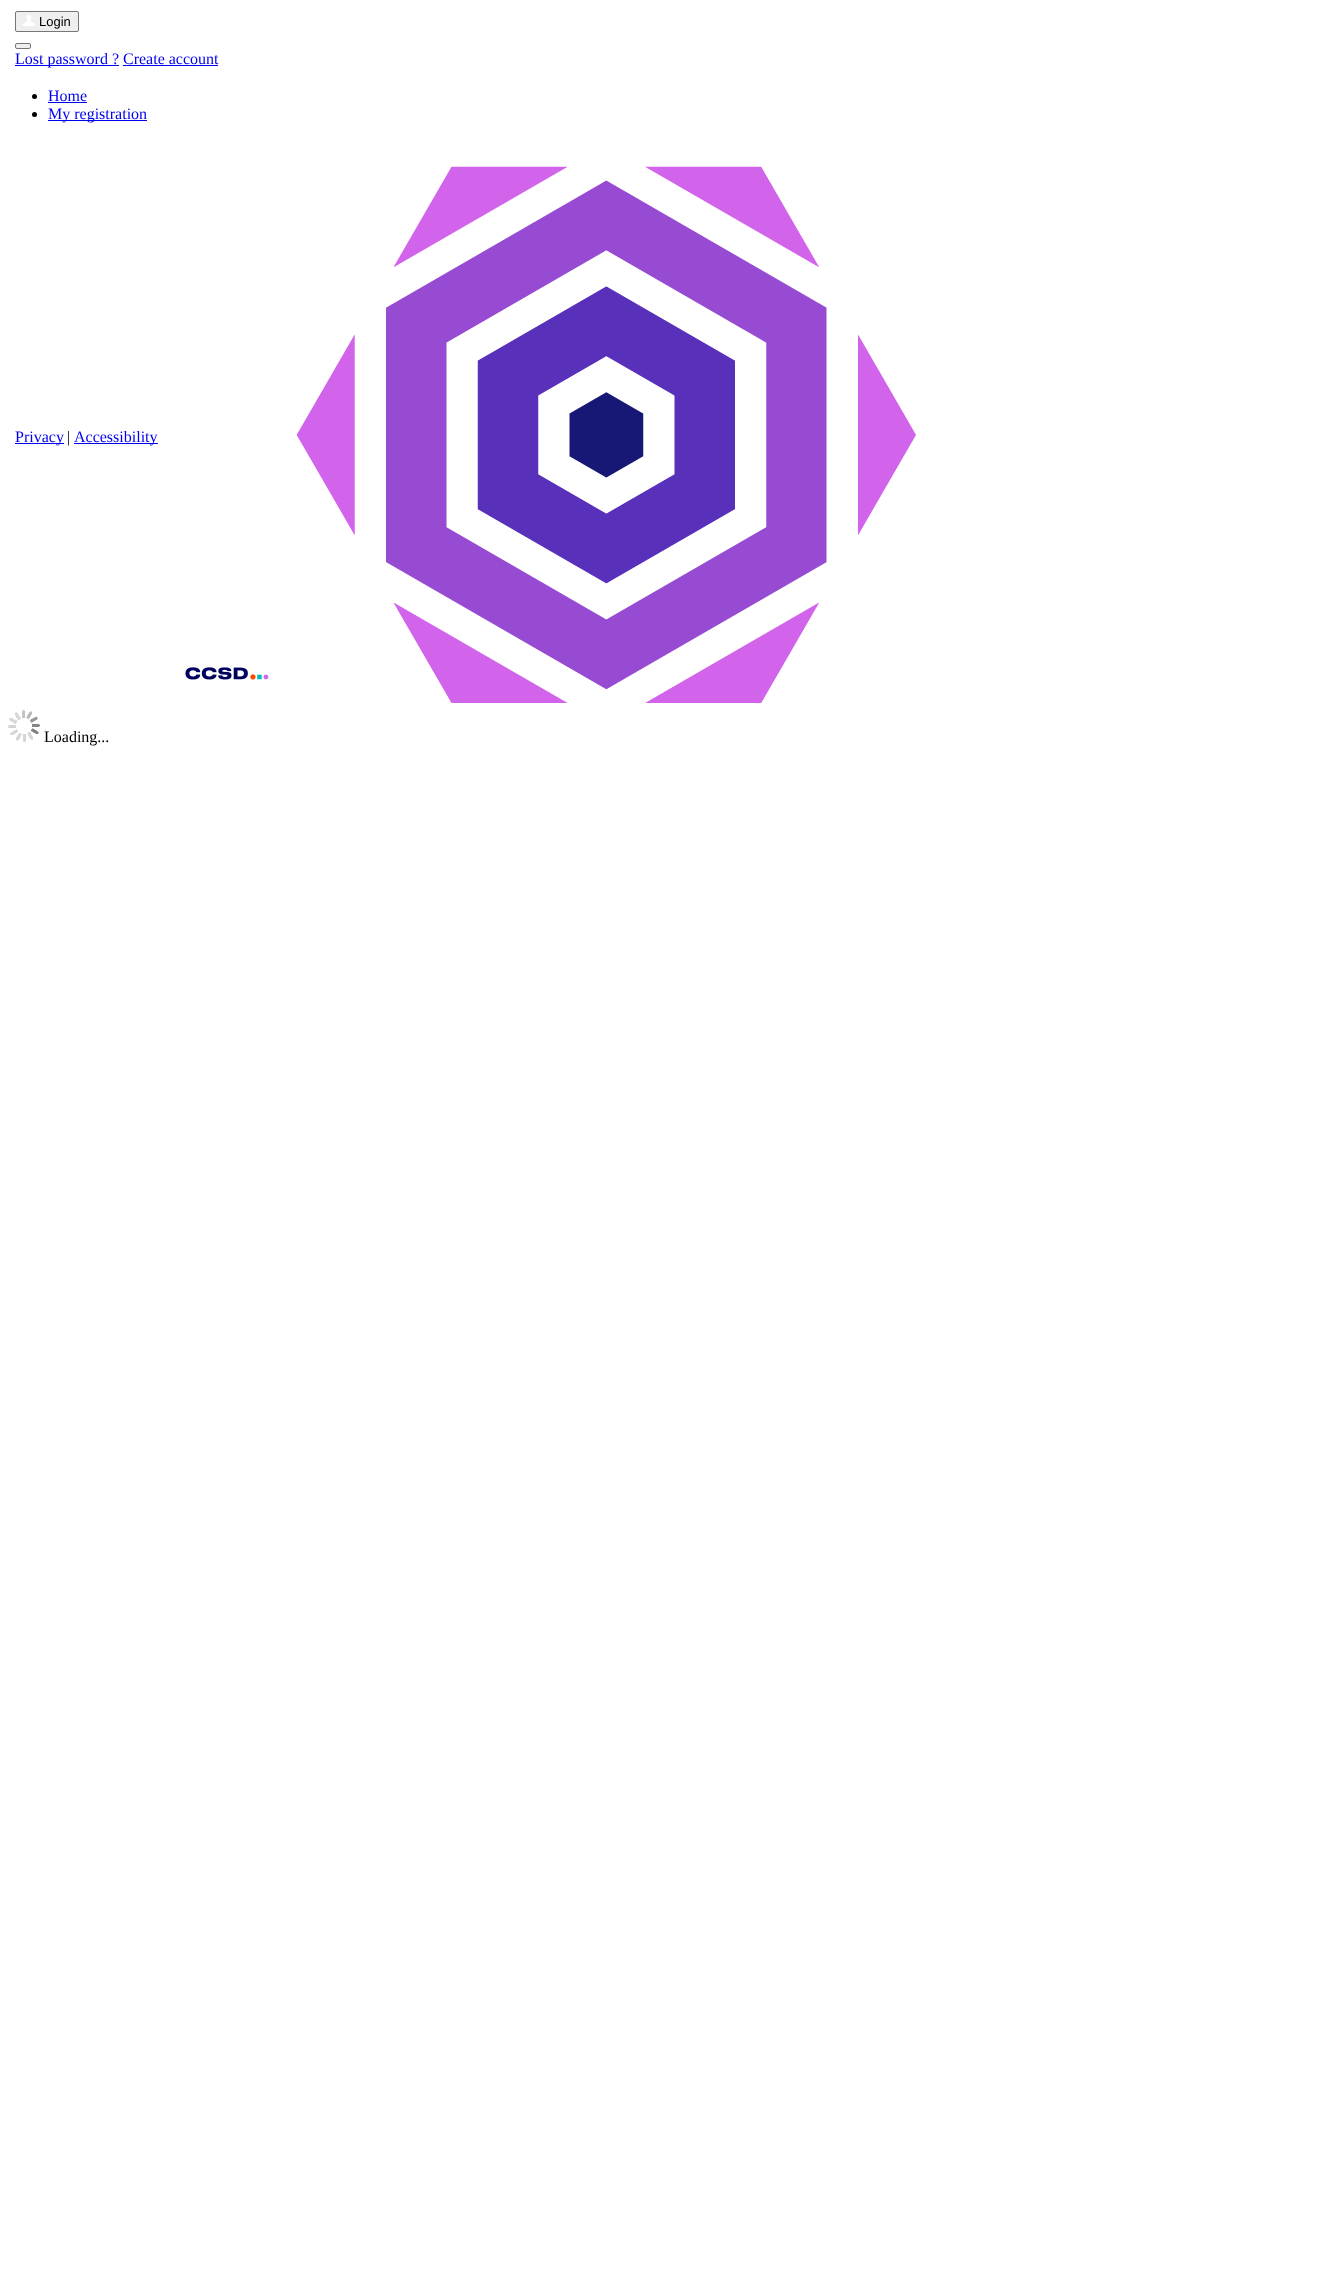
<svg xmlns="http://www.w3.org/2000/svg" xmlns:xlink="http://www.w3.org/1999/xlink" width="1323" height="2271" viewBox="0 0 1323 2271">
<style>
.cls-1{font:13px Liberation Sans;fill:#000000}
.cls-2{font:16px Liberation Serif;fill:#0000ee}
.cls-3{font:16px Liberation Serif;fill:#000000}
</style>
<rect width="100%" height="100%" fill="#ffffff"/>
<rect fill="#efefef" stroke="#767676" x="15.5" y="11.5" width="63" height="20" rx="1.5"/>
<image xlink:href="image0.png" x="23" y="15" width="12" height="11"/>
<rect fill="#efefef" stroke="#767676" x="15.5" y="43.5" width="15" height="5" rx="1.5"/>
<rect fill="#0000ee" x="15" y="65" width="104" height="1"/>
<rect fill="#0000ee" x="123" y="65" width="95" height="1"/>
<circle fill="#000000" cx="34.5" cy="96.5" r="2.5"/>
<rect fill="#0000ee" x="48" y="102" width="39" height="1"/>
<circle fill="#000000" cx="34.5" cy="114.5" r="2.5"/>
<rect fill="#0000ee" x="48" y="120" width="99" height="1"/>
<rect fill="#0000ee" x="15" y="443" width="49" height="1"/>
<rect fill="#0000ee" x="74" y="443" width="84" height="1"/>
<image xlink:href="image1.png" x="185" y="667" width="84" height="13"/>
<image xlink:href="image2.png" x="296" y="166" width="620" height="537"/>
<image xlink:href="image3.png" x="8" y="710" width="32" height="32"/>
<text class="cls-1" x="39" y="26">Login</text>
<text class="cls-2" x="15" y="64">Lost password ? Create account</text>
<text class="cls-2"><tspan x="48" y="101">Home</tspan><tspan x="48" y="119">My registration</tspan></text>
<text class="cls-2" x="15" y="442">Privacy</text>
<text class="cls-3" x="67" y="442">|</text>
<text class="cls-2" x="74" y="442">Accessibility</text>
<text class="cls-3" x="44" y="742">Loading...</text>
</svg>
